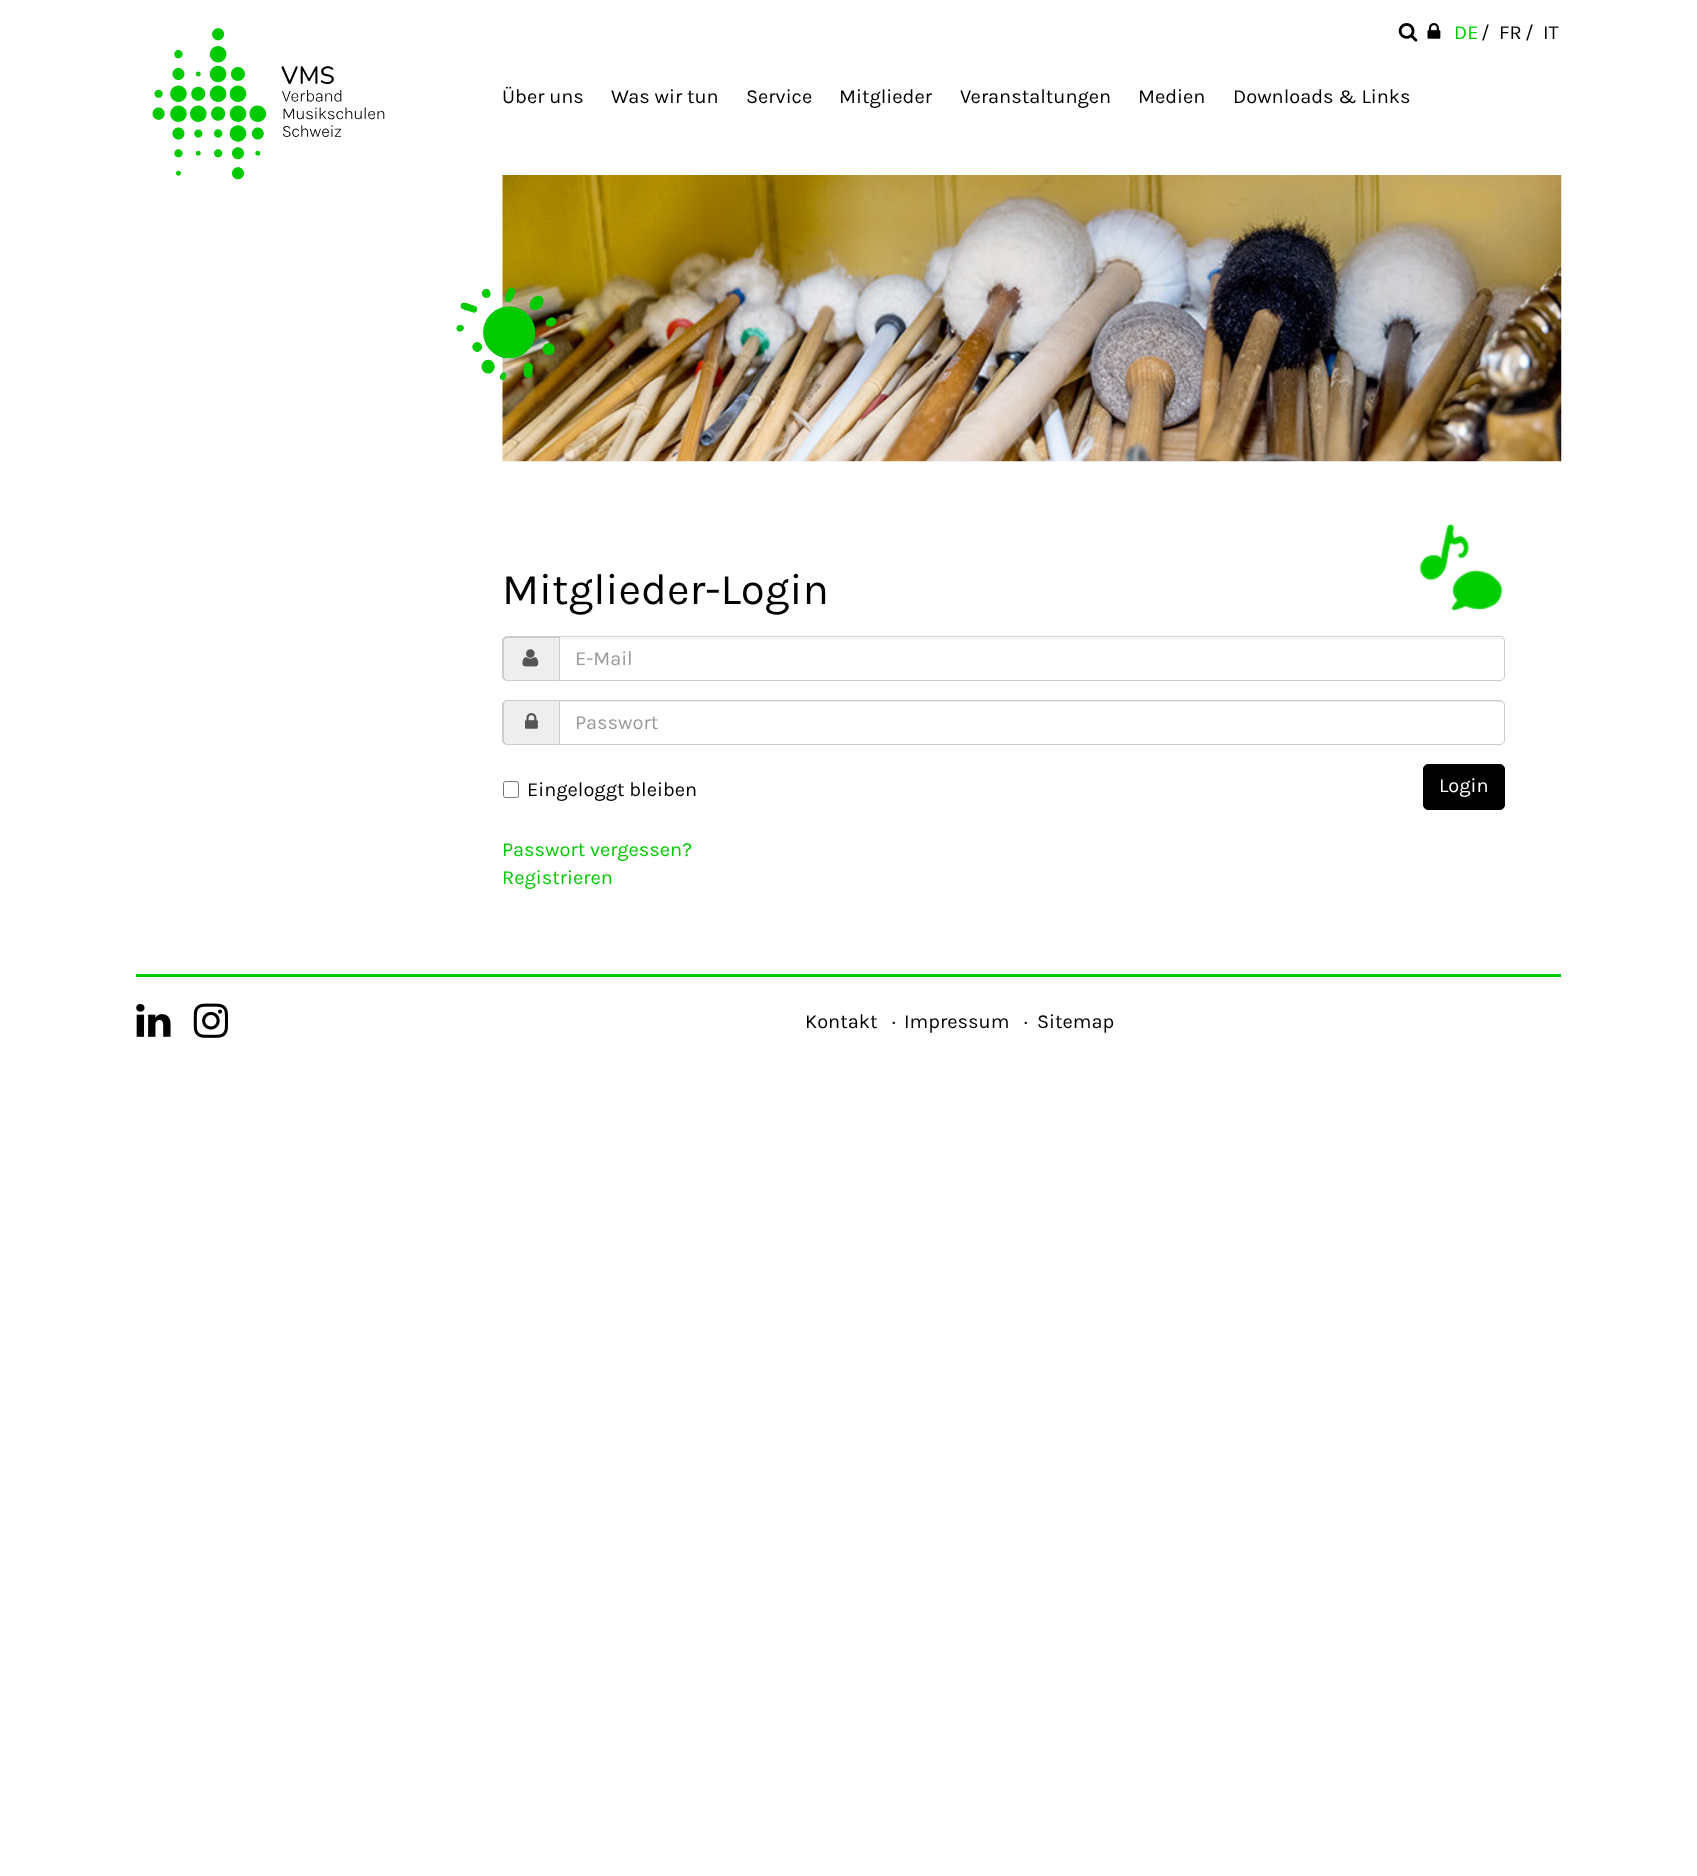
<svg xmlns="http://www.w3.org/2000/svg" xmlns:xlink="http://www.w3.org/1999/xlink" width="1697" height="1876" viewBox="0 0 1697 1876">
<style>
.cls-1{font:20px Karla;fill:#00ca00}
.cls-2{font:20px Karla;fill:#000000}
.cls-3{font:43.75px Karla;fill:#000000}
.cls-4{font:20px Karla;fill:#999999}
.cls-5{font:20px Karla;fill:#ffffff}
</style>
<rect width="100%" height="100%" fill="#ffffff"/>
<image xlink:href="image0.png" x="152" y="28" width="233" height="152"/>
<image xlink:href="image1.png" x="1398" y="23" width="20" height="19"/>
<image xlink:href="image2.png" x="1427" y="23" width="14" height="16"/>
<image xlink:href="image3.png" x="502" y="175" width="1060" height="287"/>
<image xlink:href="image4.png" x="456" y="287" width="101" height="93"/>
<image xlink:href="image5.png" x="1419" y="523" width="84" height="88"/>
<path fill="#eeeeee" d="M508 636H559V681H508C505 681 503 679 503 676V641C503 638 505 636 508 636Z"/>
<path fill="#cccccc" fill-rule="evenodd" d="M508 636H559V681H508C505 681 502 679 502 676V641C502 638 505 636 508 636ZM508 638H559V680H508C505 680 504 678 504 676V641C504 639 505 638 508 638Z"/>
<image xlink:href="image6.png" x="522" y="649" width="17" height="18"/>
<path fill="#ececec" d="M560 639H1500C1502 639 1504 640 1504 642C1504 640 1502 638 1500 638H560Z"/>
<path fill="none" stroke="#cccccc" d="M559.5 636.5H1500C1502.5 636.5 1504.5 638.5 1504.5 641V676C1504.5 678.5 1502.5 680.5 1500 680.5H559.5Z"/>
<path fill="#eeeeee" d="M508 700H559V745H508C505 745 503 743 503 740V705C503 702 505 700 508 700Z"/>
<path fill="#cccccc" fill-rule="evenodd" d="M508 700H559V745H508C505 745 502 743 502 740V705C502 702 505 700 508 700ZM508 701H559V744H508C505 744 504 742 504 740V705C504 703 505 701 508 701Z"/>
<image xlink:href="image7.png" x="525" y="713" width="13" height="16"/>
<path fill="#ececec" d="M560 702H1500C1502 702 1504 704 1504 706C1504 703 1503 701 1500 701H560Z"/>
<path fill="none" stroke="#cccccc" d="M559.5 700.5H1500C1502.5 700.5 1504.5 702.5 1504.5 705V740C1504.5 742.5 1502.5 744.5 1500 744.5H559.5Z"/>
<rect fill="none" stroke="#767676" x="503.5" y="781.5" width="15" height="16" rx="2"/>
<rect fill="#000000" stroke="#000000" x="1423.5" y="764.5" width="81" height="45" rx="4.5"/>
<rect fill="#00ca00" x="136" y="974" width="1425" height="3"/>
<image xlink:href="image8.png" x="136" y="1004" width="35" height="33"/>
<image xlink:href="image9.png" x="193" y="1003" width="36" height="35"/>
<text class="cls-1" x="1454" y="39">DE</text>
<text class="cls-2" x="1481" y="39">/</text>
<text class="cls-2" x="1499" y="39">FR</text>
<text class="cls-2" x="1525" y="39">/</text>
<text class="cls-2" x="1543" y="39">IT</text>
<text class="cls-2" x="502" y="103">Über uns</text>
<text class="cls-2" x="611" y="103">Was wir tun</text>
<text class="cls-2" x="746" y="103">Service</text>
<text class="cls-2" x="839" y="103">Mitglieder</text>
<text class="cls-2" x="960" y="103">Veranstaltungen</text>
<text class="cls-2" x="1138" y="103">Medien</text>
<text class="cls-2" x="1233" y="103">Downloads &amp; Links</text>
<text class="cls-3" x="502" y="604">Mitglieder-Login</text>
<text class="cls-4" x="575" y="665">E-Mail</text>
<text class="cls-4" x="575" y="729">Passwort</text>
<text class="cls-2" x="527" y="796">Eingeloggt bleiben</text>
<text class="cls-5" x="1439" y="792">Login</text>
<text class="cls-1"><tspan x="502" y="856">Passwort vergessen?</tspan><tspan x="502" y="884">Registrieren</tspan></text>
<text class="cls-2" x="805" y="1028">Kontakt</text>
<text class="cls-2" x="892" y="1028">·</text>
<text class="cls-2" x="904" y="1028">Impressum</text>
<text class="cls-2" x="1024" y="1028">·</text>
<text class="cls-2" x="1037" y="1028">Sitemap</text>
</svg>
